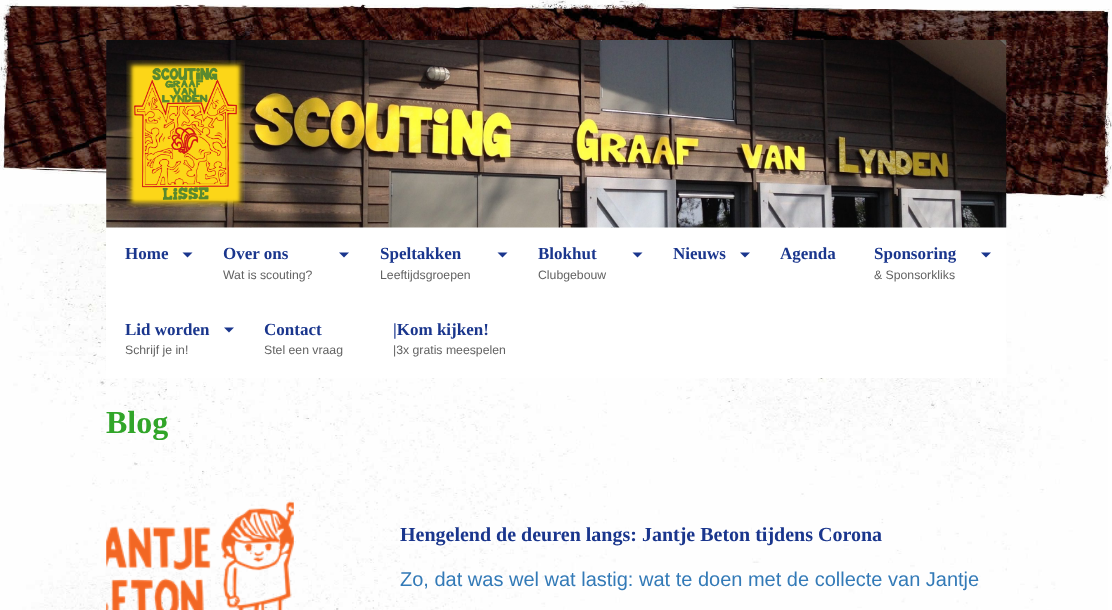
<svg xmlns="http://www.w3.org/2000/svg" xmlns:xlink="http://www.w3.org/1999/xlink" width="1112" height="610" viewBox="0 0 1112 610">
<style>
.cls-1{font:bold 17px Liberation Serif;fill:#1a368d}
.cls-2{font:12.25px Liberation Sans;fill:#626262}
.cls-3{font:bold 32px Liberation Serif;fill:#31a529}
.cls-4{font:bold 20px Liberation Serif;fill:#1a368d}
.cls-5{font:20px Liberation Sans;fill:#337ab7}
</style>
<rect width="100%" height="100%" fill="#ffffff"/>
<image xlink:href="image0.png" x="0" y="203" width="1108" height="407"/>
<image xlink:href="image1.png" x="0" y="0" width="1112" height="204"/>
<image xlink:href="image2.png" x="106" y="40" width="901" height="188"/>
<image xlink:href="image3.png" x="126" y="60" width="119" height="148"/>
<rect fill="#ffffff" x="106" y="228" width="900" height="150"/>
<path fill="#1a368d" d="M182.5 252.5H192.5L187.5 257.5Z"/>
<path fill="#1a368d" d="M339 252.5H349L344 257.5Z"/>
<path fill="#1a368d" d="M497.5 252.5H507.5L502.5 257.5Z"/>
<path fill="#1a368d" d="M632.5 252.5H642.5L637.5 257.5Z"/>
<path fill="#1a368d" d="M740 252.5H750L745 257.5Z"/>
<path fill="#1a368d" d="M981 252.5H991L986 257.5Z"/>
<path fill="#1a368d" d="M224 327.5H234L229 332.5Z"/>
<image xlink:href="image4.png" x="106" y="501" width="188" height="109"/>
<text class="cls-1" x="125" y="259">Home</text>
<text class="cls-1" x="223" y="259">Over ons</text>
<text class="cls-2" x="223" y="279">Wat is scouting?</text>
<text class="cls-1" x="380" y="259">Speltakken</text>
<text class="cls-2" x="380" y="279">Leeftijdsgroepen</text>
<text class="cls-1" x="538" y="259">Blokhut</text>
<text class="cls-2" x="538" y="279">Clubgebouw</text>
<text class="cls-1" x="673" y="259">Nieuws</text>
<text class="cls-1" x="780" y="259">Agenda</text>
<text class="cls-1" x="874" y="259">Sponsoring</text>
<text class="cls-2" x="874" y="279">&amp; Sponsorkliks</text>
<text class="cls-1" x="125" y="335">Lid worden</text>
<text class="cls-2" x="125" y="354">Schrijf je in!</text>
<text class="cls-1" x="264" y="335">Contact</text>
<text class="cls-2" x="264" y="354">Stel een vraag</text>
<text class="cls-1" x="393" y="335">|Kom kijken!</text>
<text class="cls-2" x="393" y="354">|3x gratis meespelen</text>
<text class="cls-3" x="106" y="433">Blog</text>
<text class="cls-4" x="400" y="541">Hengelend de deuren langs: Jantje Beton tijdens Corona</text>
<text class="cls-5" x="400" y="586">Zo, dat was wel wat lastig: wat te doen met de collecte van Jantje</text>
</svg>
